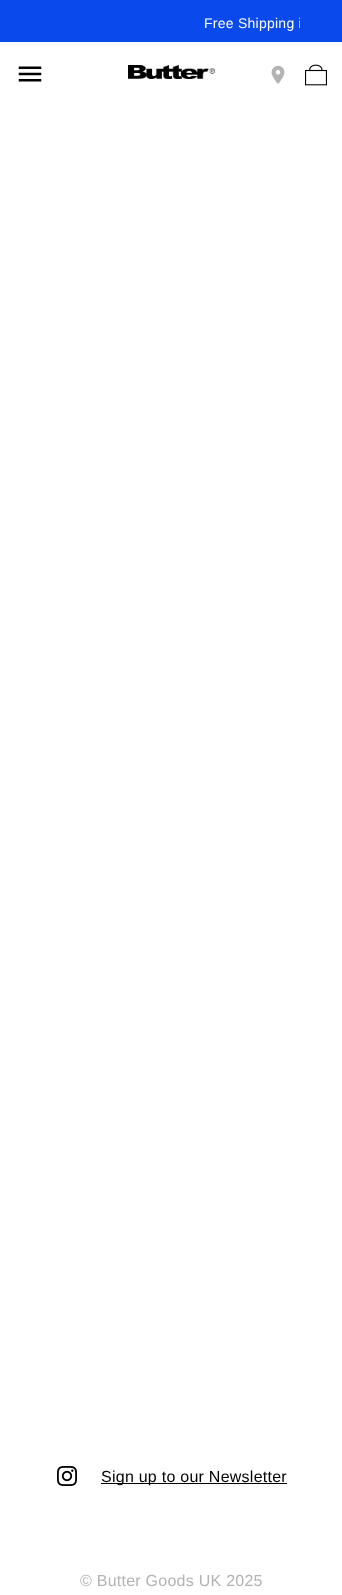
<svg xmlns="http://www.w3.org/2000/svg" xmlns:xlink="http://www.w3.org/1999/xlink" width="342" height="1595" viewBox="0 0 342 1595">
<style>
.cls-1{font:14px Liberation Sans;letter-spacing:0.25px;fill:#ffffff}
.cls-2{font:16px Liberation Sans;letter-spacing:0.25px;fill:#000000}
.cls-3{font:16px Liberation Sans;letter-spacing:0.25px;fill:#b3b3b3}
</style>
<defs>
<clipPath id="clip1"><rect x="0" y="12" width="300" height="22"/></clipPath>
</defs>
<rect width="100%" height="100%" fill="#ffffff"/>
<rect fill="#0a49ec" x="0" y="0" width="342" height="42"/>
<image xlink:href="image0.png" x="18" y="66" width="24" height="16"/>
<image xlink:href="image1.png" x="128" y="65" width="87" height="14"/>
<image xlink:href="image2.png" x="271" y="65" width="14" height="19"/>
<image xlink:href="image3.png" x="305" y="64" width="22" height="22"/>
<image xlink:href="image4.png" x="57" y="1466" width="20" height="20"/>
<rect fill="#000000" x="101" y="1483" width="186" height="1"/>
<g clip-path="url(#clip1)">
<text class="cls-1" x="204" y="28">Free Shipping i</text>
</g>
<text class="cls-2" x="101" y="1482">Sign up to our Newsletter</text>
<text class="cls-3" x="80" y="1586">© Butter Goods UK 2025</text>
</svg>
